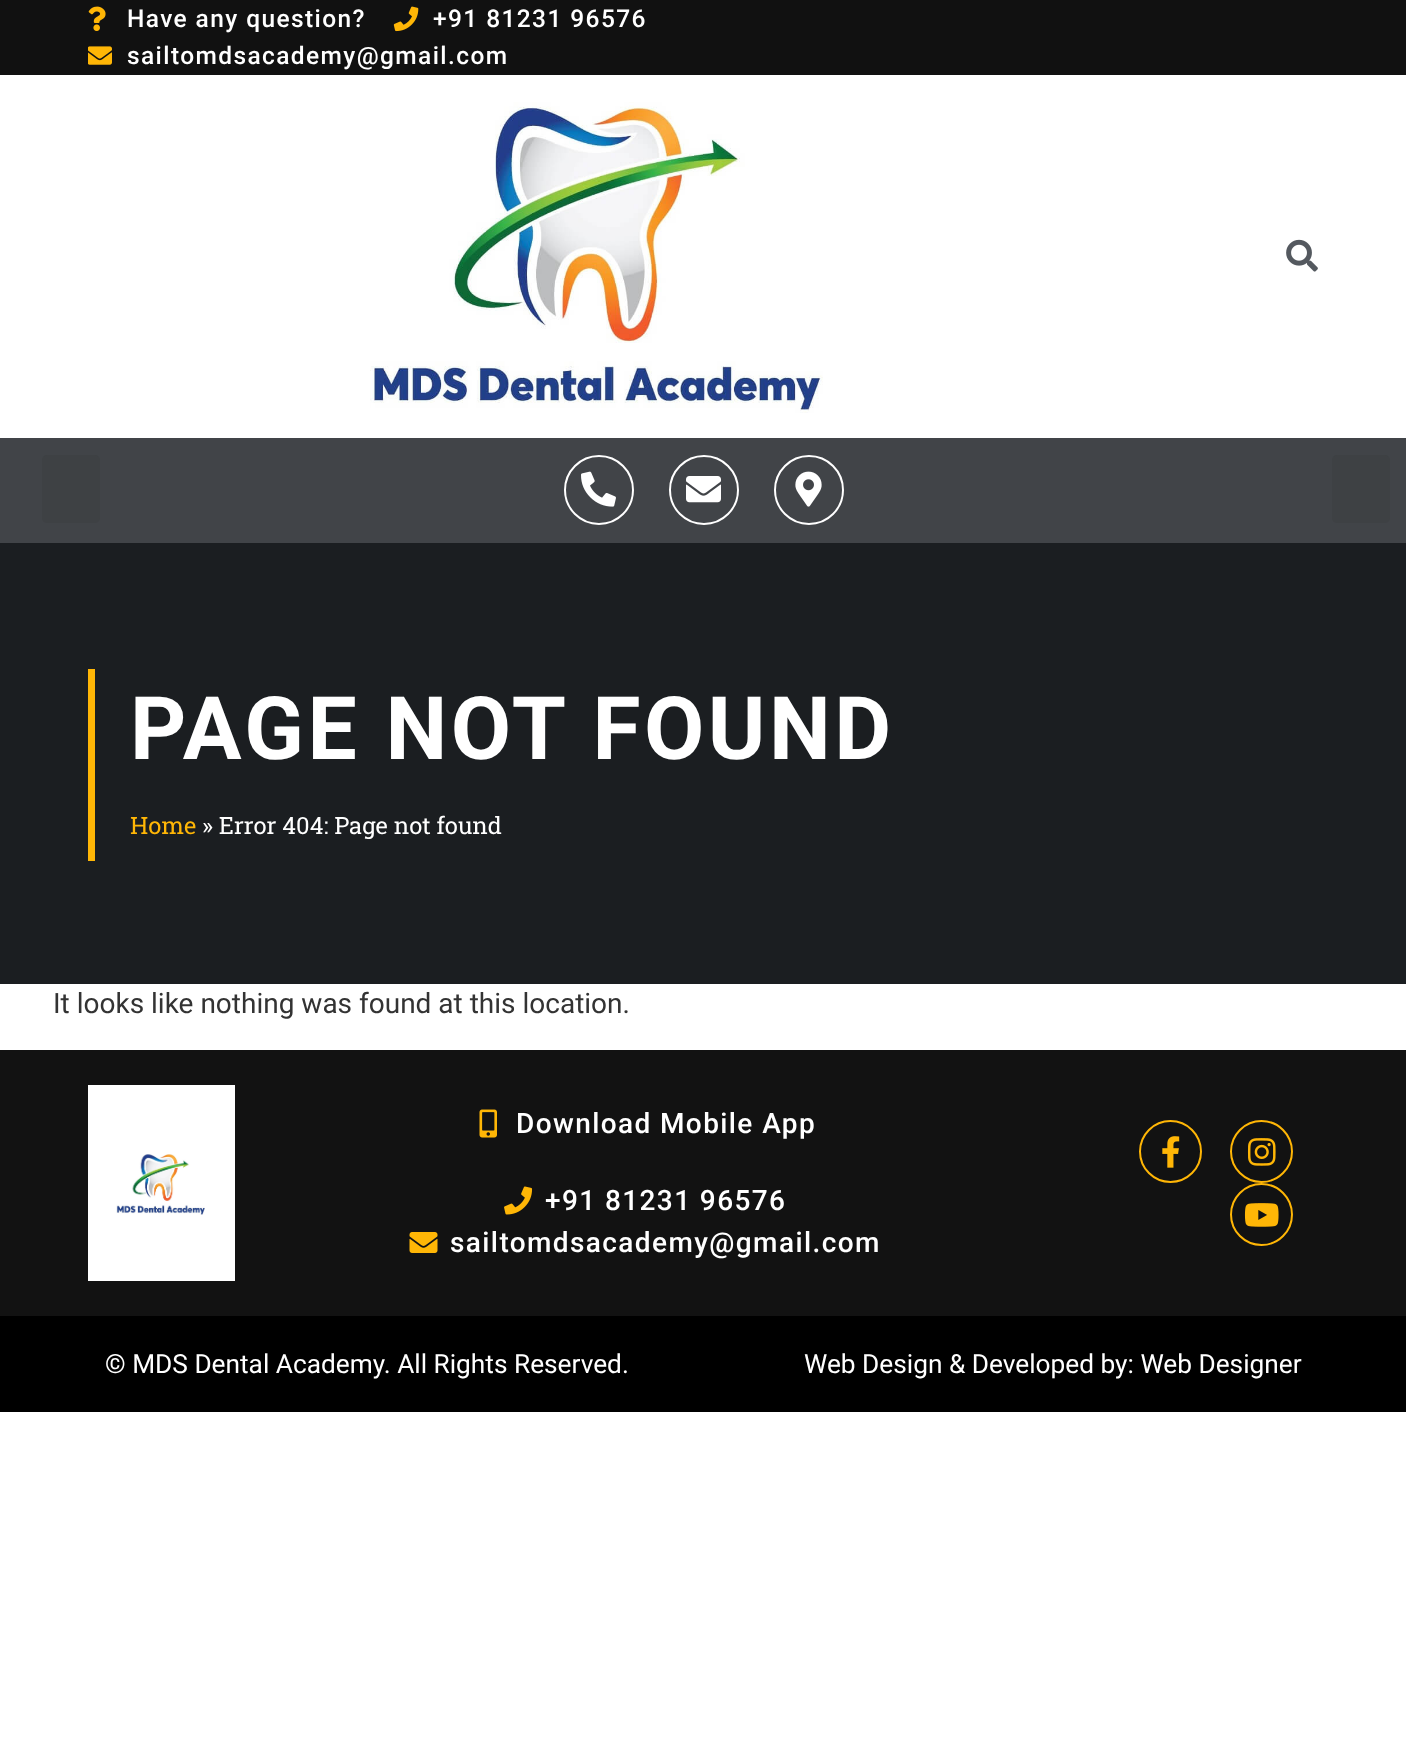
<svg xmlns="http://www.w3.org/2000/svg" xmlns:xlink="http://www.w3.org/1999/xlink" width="1406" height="1749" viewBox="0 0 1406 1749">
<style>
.cls-1{font:500 24.5px Roboto;letter-spacing:1.4px;fill:#ffffff}
.cls-2{font:bold 87.5px Roboto;letter-spacing:3.5px;fill:#ffffff}
.cls-3{font:23.75px Roboto Slab;fill:#ffb606}
.cls-4{font:23.75px Roboto Slab;fill:#ffffff}
.cls-5{font:28px Roboto;fill:#333333}
.cls-6{font:500 28px Roboto;letter-spacing:1.4px;fill:#ffffff}
.cls-7{font:26.25px Roboto;fill:#ffffff}
</style>
<rect width="100%" height="100%" fill="#ffffff"/>
<rect fill="#111111" x="0" y="0" width="1406" height="75"/>
<image xlink:href="image0.png" x="88" y="6" width="18" height="25"/>
<image xlink:href="image1.png" x="393" y="6" width="26" height="26"/>
<image xlink:href="image2.png" x="88" y="46" width="24" height="19"/>
<image xlink:href="image3.png" x="370" y="102" width="453" height="311"/>
<image xlink:href="image4.png" x="1286" y="239" width="32" height="33"/>
<rect fill="#414448" x="0" y="438" width="1406" height="105"/>
<rect fill="#3e4144" x="42" y="455" width="58" height="68" rx="5"/>
<circle fill="none" stroke="#ffffff" stroke-width="2" cx="599" cy="490" r="34"/>
<image xlink:href="image5.png" x="581" y="471" width="35" height="36"/>
<circle fill="none" stroke="#ffffff" stroke-width="2" cx="704" cy="490" r="34"/>
<image xlink:href="image6.png" x="686" y="476" width="35" height="27"/>
<circle fill="none" stroke="#ffffff" stroke-width="2" cx="809" cy="490" r="34"/>
<image xlink:href="image7.png" x="795" y="471" width="27" height="36"/>
<rect fill="#3e4144" x="1332" y="455" width="58" height="68" rx="5"/>
<rect fill="#1b1e21" x="0" y="543" width="1406" height="441"/>
<rect fill="#ffb606" x="88" y="669" width="7" height="192"/>
<rect fill="#121212" x="0" y="1050" width="1406" height="266"/>
<rect fill="#ffffff" x="88" y="1085" width="147" height="196"/>
<image xlink:href="image8.png" x="116" y="1154" width="89" height="61"/>
<image xlink:href="image9.png" x="479" y="1109" width="18" height="29"/>
<image xlink:href="image10.png" x="504" y="1186" width="29" height="29"/>
<image xlink:href="image11.png" x="409" y="1232" width="29" height="21"/>
<circle fill="none" stroke="#ffb606" stroke-width="2" cx="1170.5" cy="1151.5" r="30.5"/>
<image xlink:href="image12.png" x="1162" y="1136" width="18" height="32"/>
<circle fill="none" stroke="#ffb606" stroke-width="2" cx="1261.5" cy="1151.5" r="30.5"/>
<image xlink:href="image13.png" x="1247" y="1138" width="29" height="28"/>
<circle fill="none" stroke="#ffb606" stroke-width="2" cx="1261.5" cy="1214.5" r="30.5"/>
<image xlink:href="image14.png" x="1244" y="1203" width="35" height="24"/>
<rect fill="#000000" x="0" y="1316" width="1406" height="96"/>
<text class="cls-1" x="127" y="27">Have any question?</text>
<text class="cls-1" x="433" y="27">+91 81231 96576</text>
<text class="cls-1" x="127" y="64">sailtomdsacademy@gmail.com</text>
<text class="cls-2" x="130" y="759">PAGE NOT FOUND</text>
<text class="cls-3" x="130" y="834">Home</text>
<text class="cls-4" x="202" y="834">» Error 404: Page not found</text>
<text class="cls-5" x="53" y="1013">It looks like nothing was found at this location.</text>
<text class="cls-6" x="516" y="1133">Download Mobile App</text>
<text class="cls-6" x="545" y="1210">+91 81231 96576</text>
<text class="cls-6" x="450" y="1252">sailtomdsacademy@gmail.com</text>
<text class="cls-7" x="105" y="1373">© MDS Dental Academy. All Rights Reserved.</text>
<text class="cls-7" x="804" y="1373">Web Design &amp; Developed by: Web Designer</text>
</svg>
